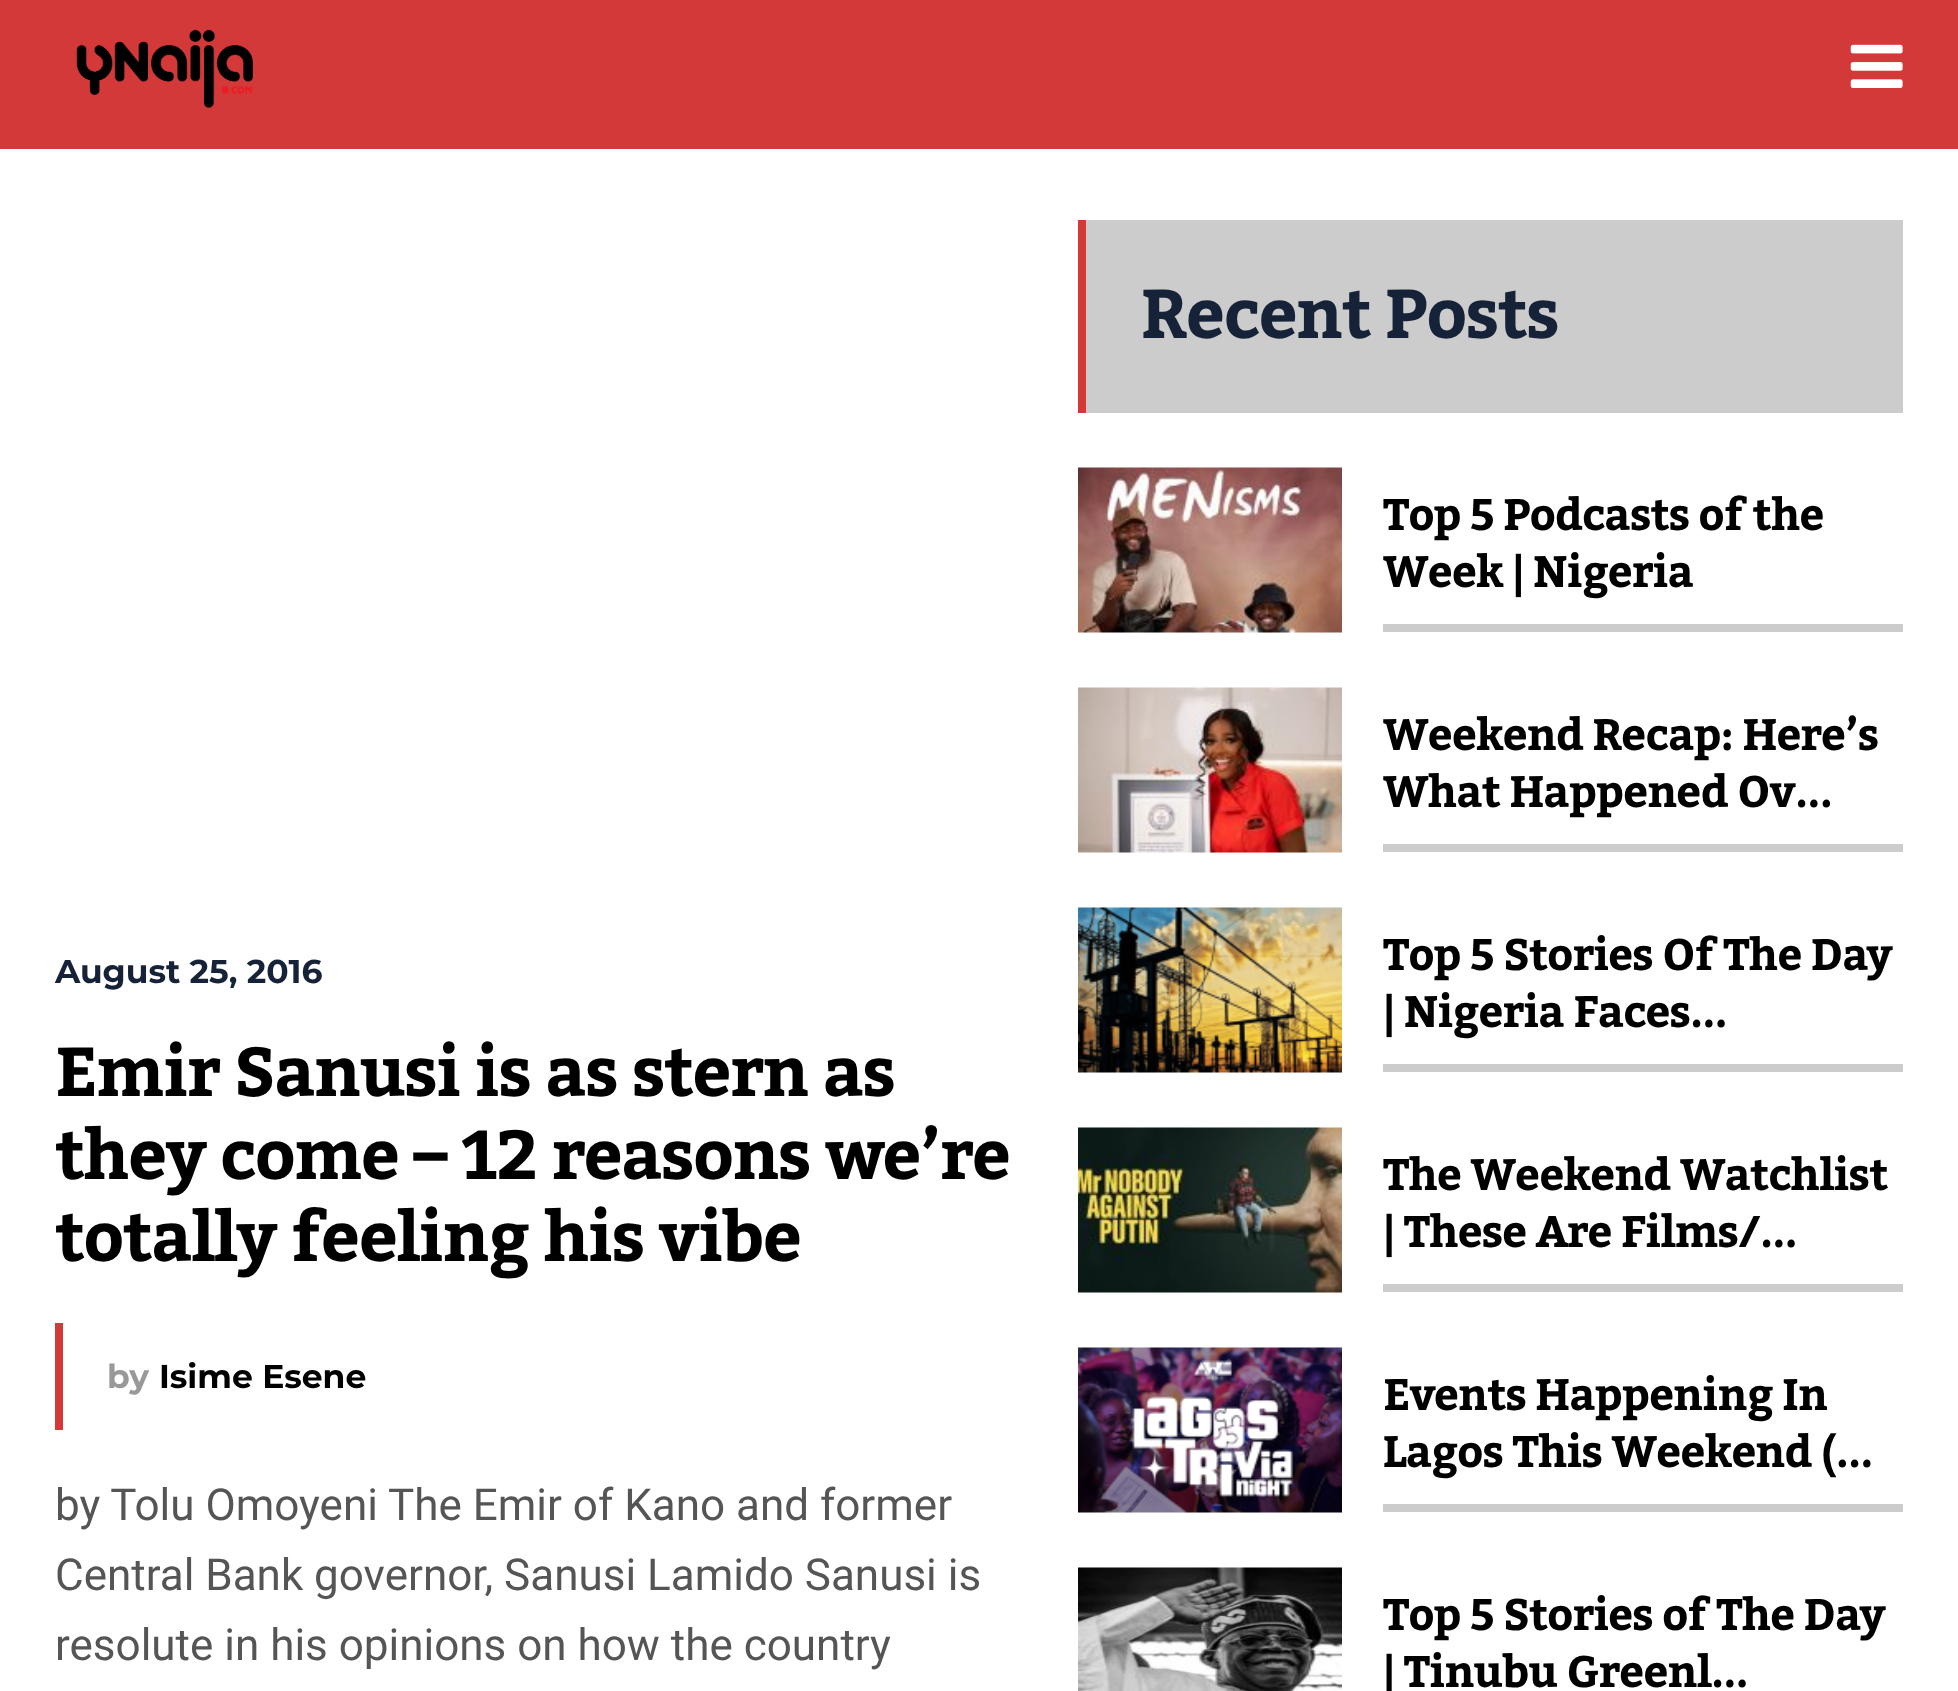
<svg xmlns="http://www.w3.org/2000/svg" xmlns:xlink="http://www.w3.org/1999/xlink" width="1958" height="1691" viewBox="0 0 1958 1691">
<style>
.cls-1{font:bold 33px Montserrat;fill:#162238}
.cls-2{font:bold 68.75px Kadwa;letter-spacing:-1.4px;fill:#000000}
.cls-3{font:bold 33px Montserrat;fill:#999999}
.cls-4{font:bold 33px Montserrat;fill:#000000}
.cls-5{font:44px Roboto;fill:#555555}
.cls-6{font:bold 68.75px Kadwa;letter-spacing:-1.4px;fill:#162238}
.cls-7{font:bold 44px Kadwa;letter-spacing:-0.9px;fill:#000000}
</style>
<rect width="100%" height="100%" fill="#ffffff"/>
<rect fill="#d43939" x="0" y="0" width="1958" height="149"/>
<image xlink:href="image0.png" x="76" y="29" width="177" height="79"/>
<image xlink:href="image1.png" x="1850" y="44" width="53" height="44"/>
<rect fill="#d43939" x="55" y="1323" width="8" height="107"/>
<rect fill="#cccccc" x="1086" y="220" width="817" height="193"/>
<rect fill="#d43939" x="1078" y="220" width="8" height="193"/>
<image xlink:href="image2.png" x="1078" y="467" width="264" height="166"/>
<rect fill="#cccccc" x="1383" y="624" width="520" height="8"/>
<image xlink:href="image3.png" x="1078" y="687" width="264" height="166"/>
<rect fill="#cccccc" x="1383" y="844" width="520" height="8"/>
<image xlink:href="image4.png" x="1078" y="907" width="264" height="166"/>
<rect fill="#cccccc" x="1383" y="1064" width="520" height="8"/>
<image xlink:href="image5.png" x="1078" y="1127" width="264" height="166"/>
<rect fill="#cccccc" x="1383" y="1284" width="520" height="8"/>
<image xlink:href="image6.png" x="1078" y="1347" width="264" height="166"/>
<rect fill="#cccccc" x="1383" y="1504" width="520" height="8"/>
<image xlink:href="image7.png" x="1078" y="1567" width="264" height="124"/>
<text class="cls-1" x="55" y="983">August 25, 2016</text>
<text class="cls-2"><tspan x="55" y="1096">Emir Sanusi is as stern as</tspan><tspan x="55" y="1179">they come – 12 reasons we’re</tspan><tspan x="55" y="1261">totally feeling his vibe</tspan></text>
<text class="cls-3" x="107" y="1388">by</text>
<text class="cls-4" x="159" y="1388">Isime Esene</text>
<text class="cls-5"><tspan x="55" y="1520">by Tolu Omoyeni The Emir of Kano and former</tspan><tspan x="55" y="1590">Central Bank governor, Sanusi Lamido Sanusi is</tspan><tspan x="55" y="1660">resolute in his opinions on how the country</tspan></text>
<text class="cls-6" x="1141" y="338">Recent Posts</text>
<text class="cls-7"><tspan x="1383" y="530">Top 5 Podcasts of the</tspan><tspan x="1383" y="587">Week | Nigeria</tspan></text>
<text class="cls-7"><tspan x="1383" y="750">Weekend Recap: Here’s</tspan><tspan x="1383" y="807">What Happened Ov...</tspan></text>
<text class="cls-7"><tspan x="1383" y="970">Top 5 Stories Of The Day</tspan><tspan x="1383" y="1027">| Nigeria Faces...</tspan></text>
<text class="cls-7"><tspan x="1383" y="1190">The Weekend Watchlist</tspan><tspan x="1383" y="1247">| These Are Films/...</tspan></text>
<text class="cls-7"><tspan x="1383" y="1410">Events Happening In</tspan><tspan x="1383" y="1467">Lagos This Weekend (...</tspan></text>
<text class="cls-7"><tspan x="1383" y="1630">Top 5 Stories of The Day</tspan><tspan x="1383" y="1687">| Tinubu Greenl...</tspan></text>
</svg>
